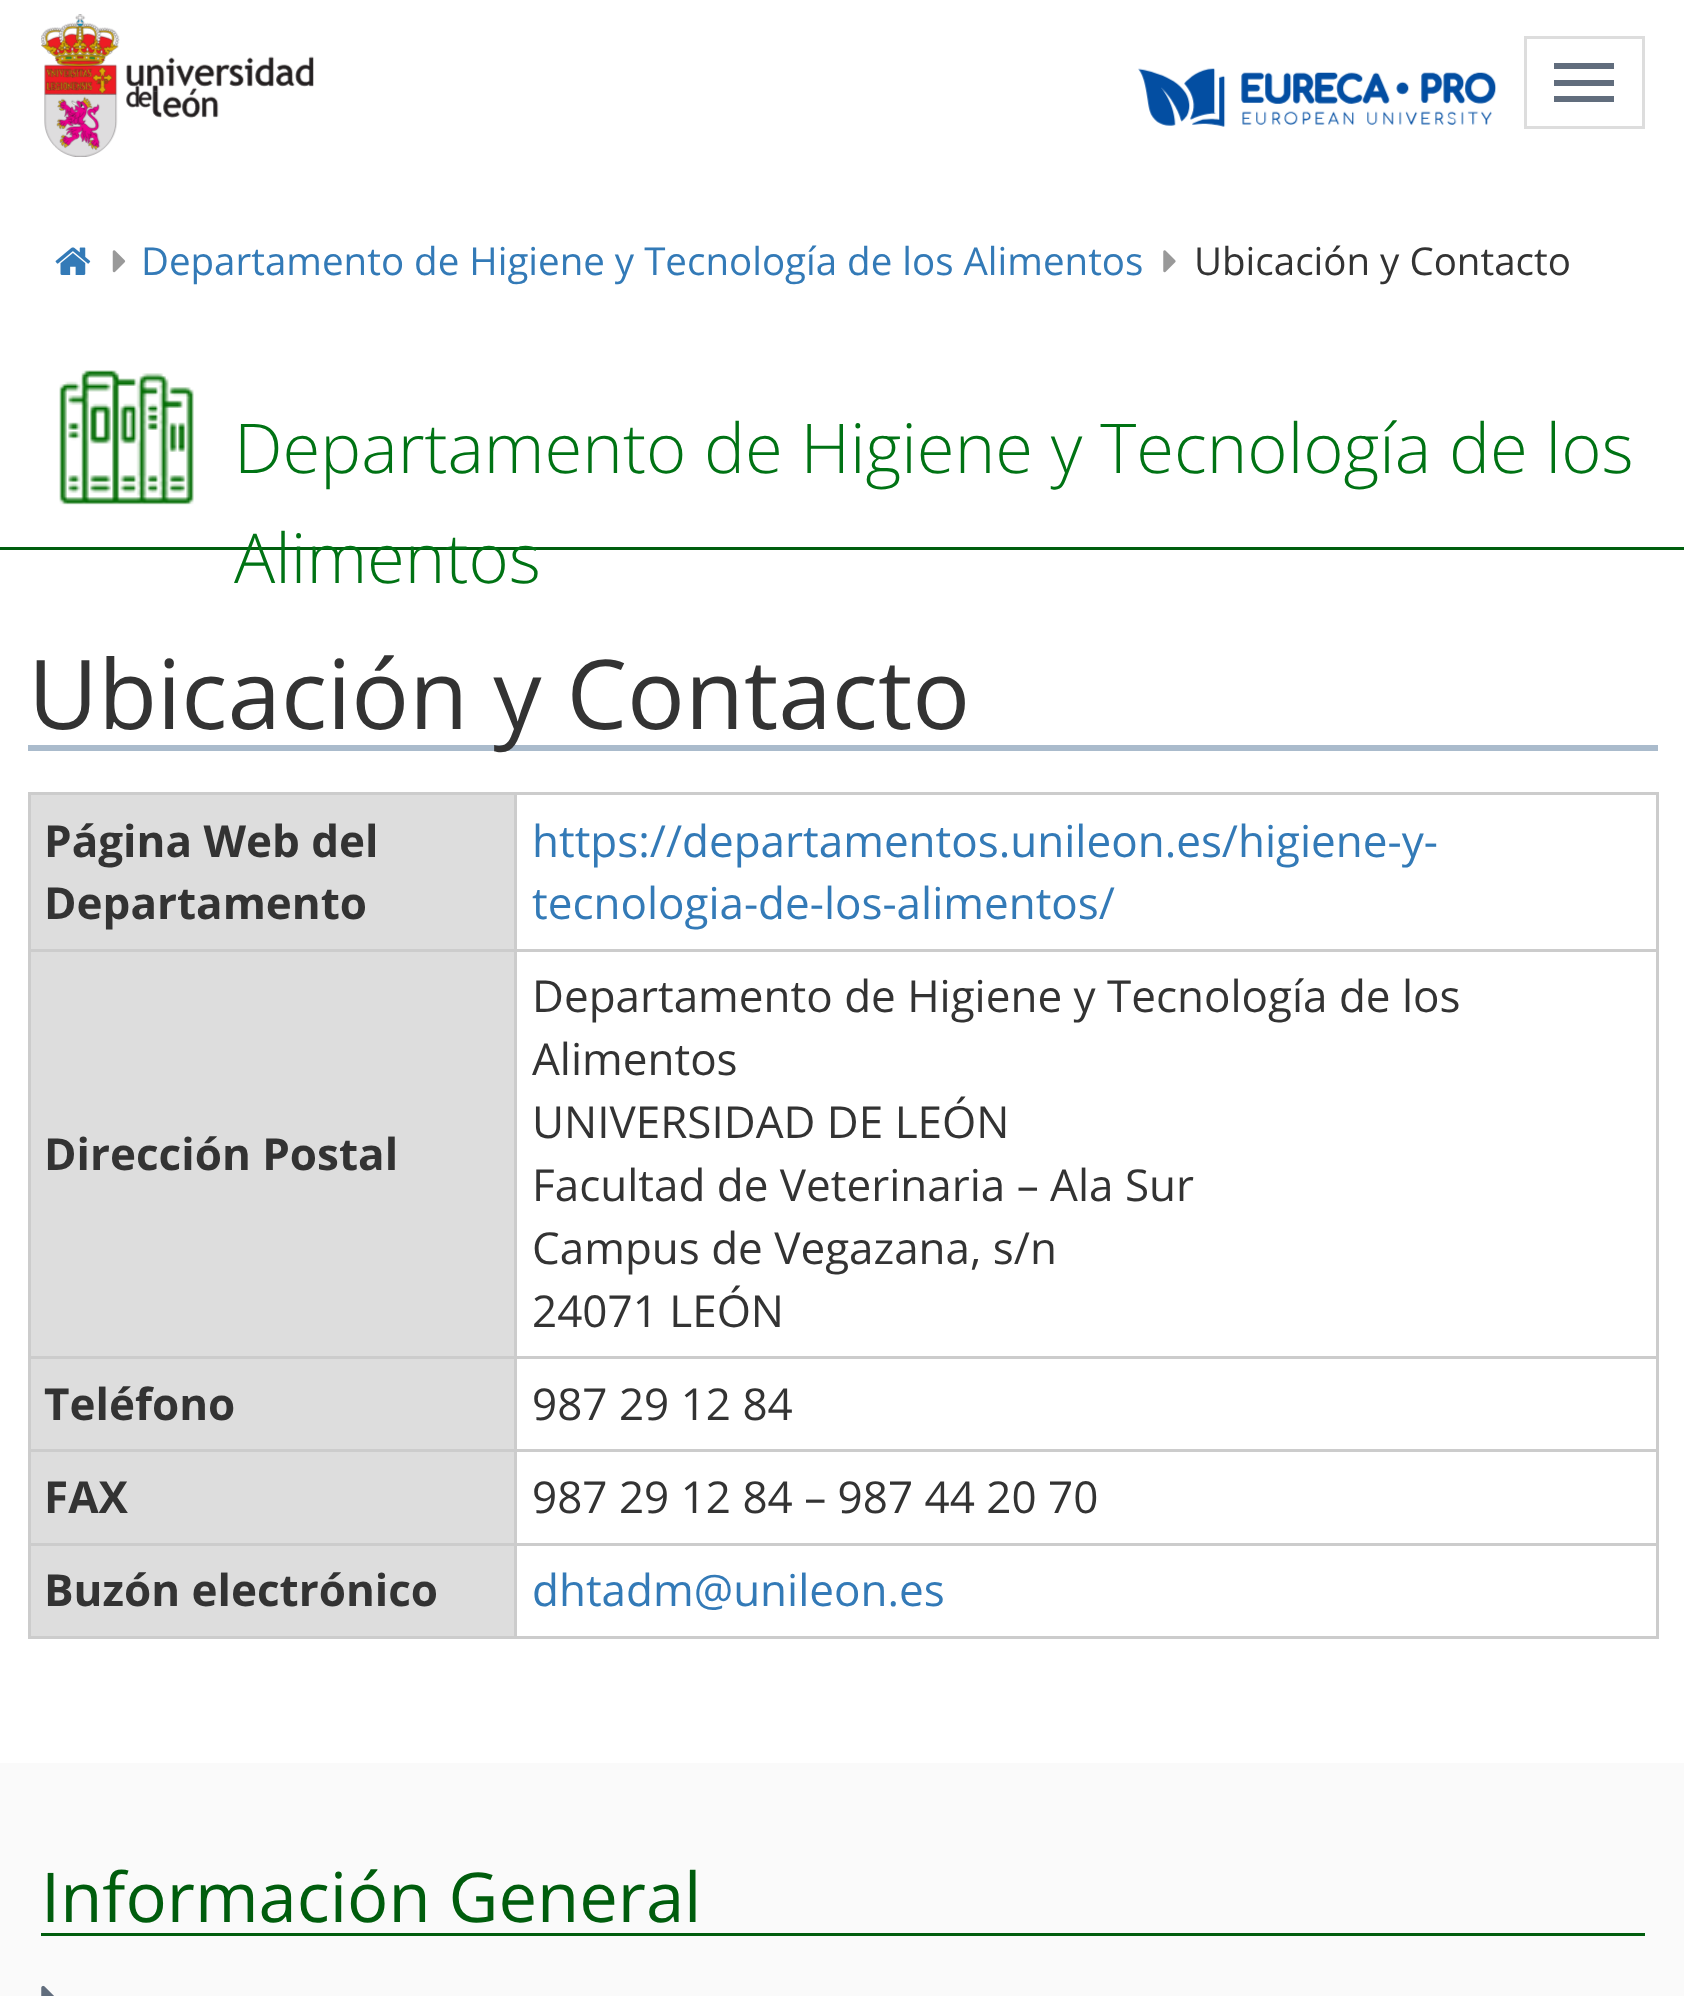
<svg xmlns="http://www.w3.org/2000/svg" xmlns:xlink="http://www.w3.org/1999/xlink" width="1684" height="1996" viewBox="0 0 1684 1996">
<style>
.cls-1{font:38.5px Open Sans;fill:#337ab7}
.cls-2{font:38.5px Open Sans;fill:#333333}
.cls-3{font:300 68.75px Open Sans;fill:#007314}
.cls-4{font:96.25px Open Sans;fill:#333333}
.cls-5{font:bold 44px Open Sans;fill:#333333}
.cls-6{font:44px Open Sans;fill:#337ab7}
.cls-7{font:44px Open Sans;fill:#333333}
.cls-8{font:68.75px Open Sans;fill:#005d0d}
</style>
<rect width="100%" height="100%" fill="#ffffff"/>
<image xlink:href="image0.png" x="41" y="14" width="273" height="143"/>
<image xlink:href="image1.png" x="1138" y="68" width="358" height="59"/>
<rect fill="none" stroke="#dddddd" stroke-width="3" x="1525.5" y="37.5" width="118" height="90"/>
<rect fill="#616d7d" x="1554" y="63" width="60" height="6"/>
<rect fill="#616d7d" x="1554" y="80" width="60" height="6"/>
<rect fill="#616d7d" x="1554" y="96" width="60" height="6"/>
<image xlink:href="image2.png" x="55" y="247" width="36" height="28"/>
<image xlink:href="image3.png" x="112" y="250" width="14" height="23"/>
<image xlink:href="image4.png" x="1163" y="250" width="13" height="23"/>
<rect fill="#005e0e" x="0" y="547" width="1684" height="3"/>
<image xlink:href="image5.png" x="59" y="370" width="135" height="135"/>
<rect fill="#aabbcc" x="28" y="745" width="1630" height="6"/>
<rect fill="#dddddd" x="31" y="795" width="483" height="154"/>
<rect fill="#cccccc" x="514" y="792" width="1144" height="3"/>
<rect fill="#cccccc" x="514" y="949" width="1144" height="3"/>
<rect fill="#cccccc" x="514" y="1356" width="1144" height="3"/>
<rect fill="#cccccc" x="514" y="1449" width="1144" height="3"/>
<rect fill="#cccccc" x="514" y="1543" width="1144" height="3"/>
<rect fill="#cccccc" x="1656" y="1543" width="3" height="96"/>
<rect fill="#cccccc" x="514" y="1636" width="1144" height="3"/>
<rect fill="#cccccc" x="514" y="1543" width="3" height="96"/>
<rect fill="#cccccc" x="28" y="1543" width="489" height="3"/>
<rect fill="#cccccc" x="514" y="1449" width="3" height="97"/>
<rect fill="#cccccc" x="28" y="1449" width="489" height="3"/>
<rect fill="#cccccc" x="514" y="1356" width="3" height="96"/>
<rect fill="#cccccc" x="28" y="1356" width="489" height="3"/>
<rect fill="#cccccc" x="514" y="949" width="3" height="410"/>
<rect fill="#cccccc" x="28" y="949" width="489" height="3"/>
<rect fill="#cccccc" x="514" y="792" width="3" height="160"/>
<rect fill="#cccccc" x="28" y="792" width="489" height="3"/>
<rect fill="#cccccc" x="28" y="1636" width="489" height="3"/>
<rect fill="#cccccc" x="28" y="1543" width="3" height="96"/>
<rect fill="#cccccc" x="28" y="1449" width="3" height="97"/>
<rect fill="#cccccc" x="28" y="1356" width="3" height="96"/>
<rect fill="#cccccc" x="28" y="949" width="3" height="410"/>
<rect fill="#cccccc" x="28" y="792" width="3" height="160"/>
<rect fill="#cccccc" x="1656" y="1449" width="3" height="97"/>
<rect fill="#cccccc" x="1656" y="1356" width="3" height="96"/>
<rect fill="#cccccc" x="1656" y="949" width="3" height="410"/>
<rect fill="#cccccc" x="1656" y="792" width="3" height="160"/>
<rect fill="#dddddd" x="31" y="952" width="483" height="404"/>
<rect fill="#dddddd" x="31" y="1359" width="483" height="90"/>
<rect fill="#dddddd" x="31" y="1452" width="483" height="91"/>
<rect fill="#dddddd" x="31" y="1546" width="483" height="90"/>
<rect fill="#fafafa" x="0" y="1763" width="1684" height="233"/>
<rect fill="#005d0d" x="41" y="1933" width="1604" height="3"/>
<image xlink:href="image6.png" x="41" y="1985" width="13" height="11"/>
<text class="cls-1" x="141" y="275">Departamento de Higiene y Tecnología de los Alimentos</text>
<text class="cls-2" x="1194" y="275">Ubicación y Contacto</text>
<text class="cls-3"><tspan x="234" y="473">Departamento de Higiene y Tecnología de los</tspan><tspan x="234" y="583">Alimentos</tspan></text>
<text class="cls-4" x="28" y="729">Ubicación y Contacto</text>
<text class="cls-5"><tspan x="44" y="857">Página Web del</tspan><tspan x="44" y="919">Departamento</tspan></text>
<text class="cls-6"><tspan x="532" y="857">https://departamentos.unileon.es/higiene-y-</tspan><tspan x="532" y="919">tecnologia-de-los-alimentos/</tspan></text>
<text class="cls-5" x="44" y="1170">Dirección Postal</text>
<text class="cls-7"><tspan x="532" y="1012">Departamento de Higiene y Tecnología de los</tspan><tspan x="532" y="1075">Alimentos</tspan><tspan x="532" y="1138">UNIVERSIDAD DE LEÓN</tspan><tspan x="532" y="1201">Facultad de Veterinaria – Ala Sur</tspan><tspan x="532" y="1264">Campus de Vegazana, s/n</tspan><tspan x="532" y="1327">24071 LEÓN</tspan></text>
<text class="cls-5" x="44" y="1420">Teléfono</text>
<text class="cls-7" x="532" y="1420">987 29 12 84</text>
<text class="cls-5" x="44" y="1513">FAX</text>
<text class="cls-7" x="532" y="1513">987 29 12 84 – 987 44 20 70</text>
<text class="cls-5" x="44" y="1606">Buzón electrónico</text>
<text class="cls-6" x="532" y="1606">dhtadm@unileon.es</text>
<text class="cls-8" x="41" y="1922">Información General</text>
</svg>
